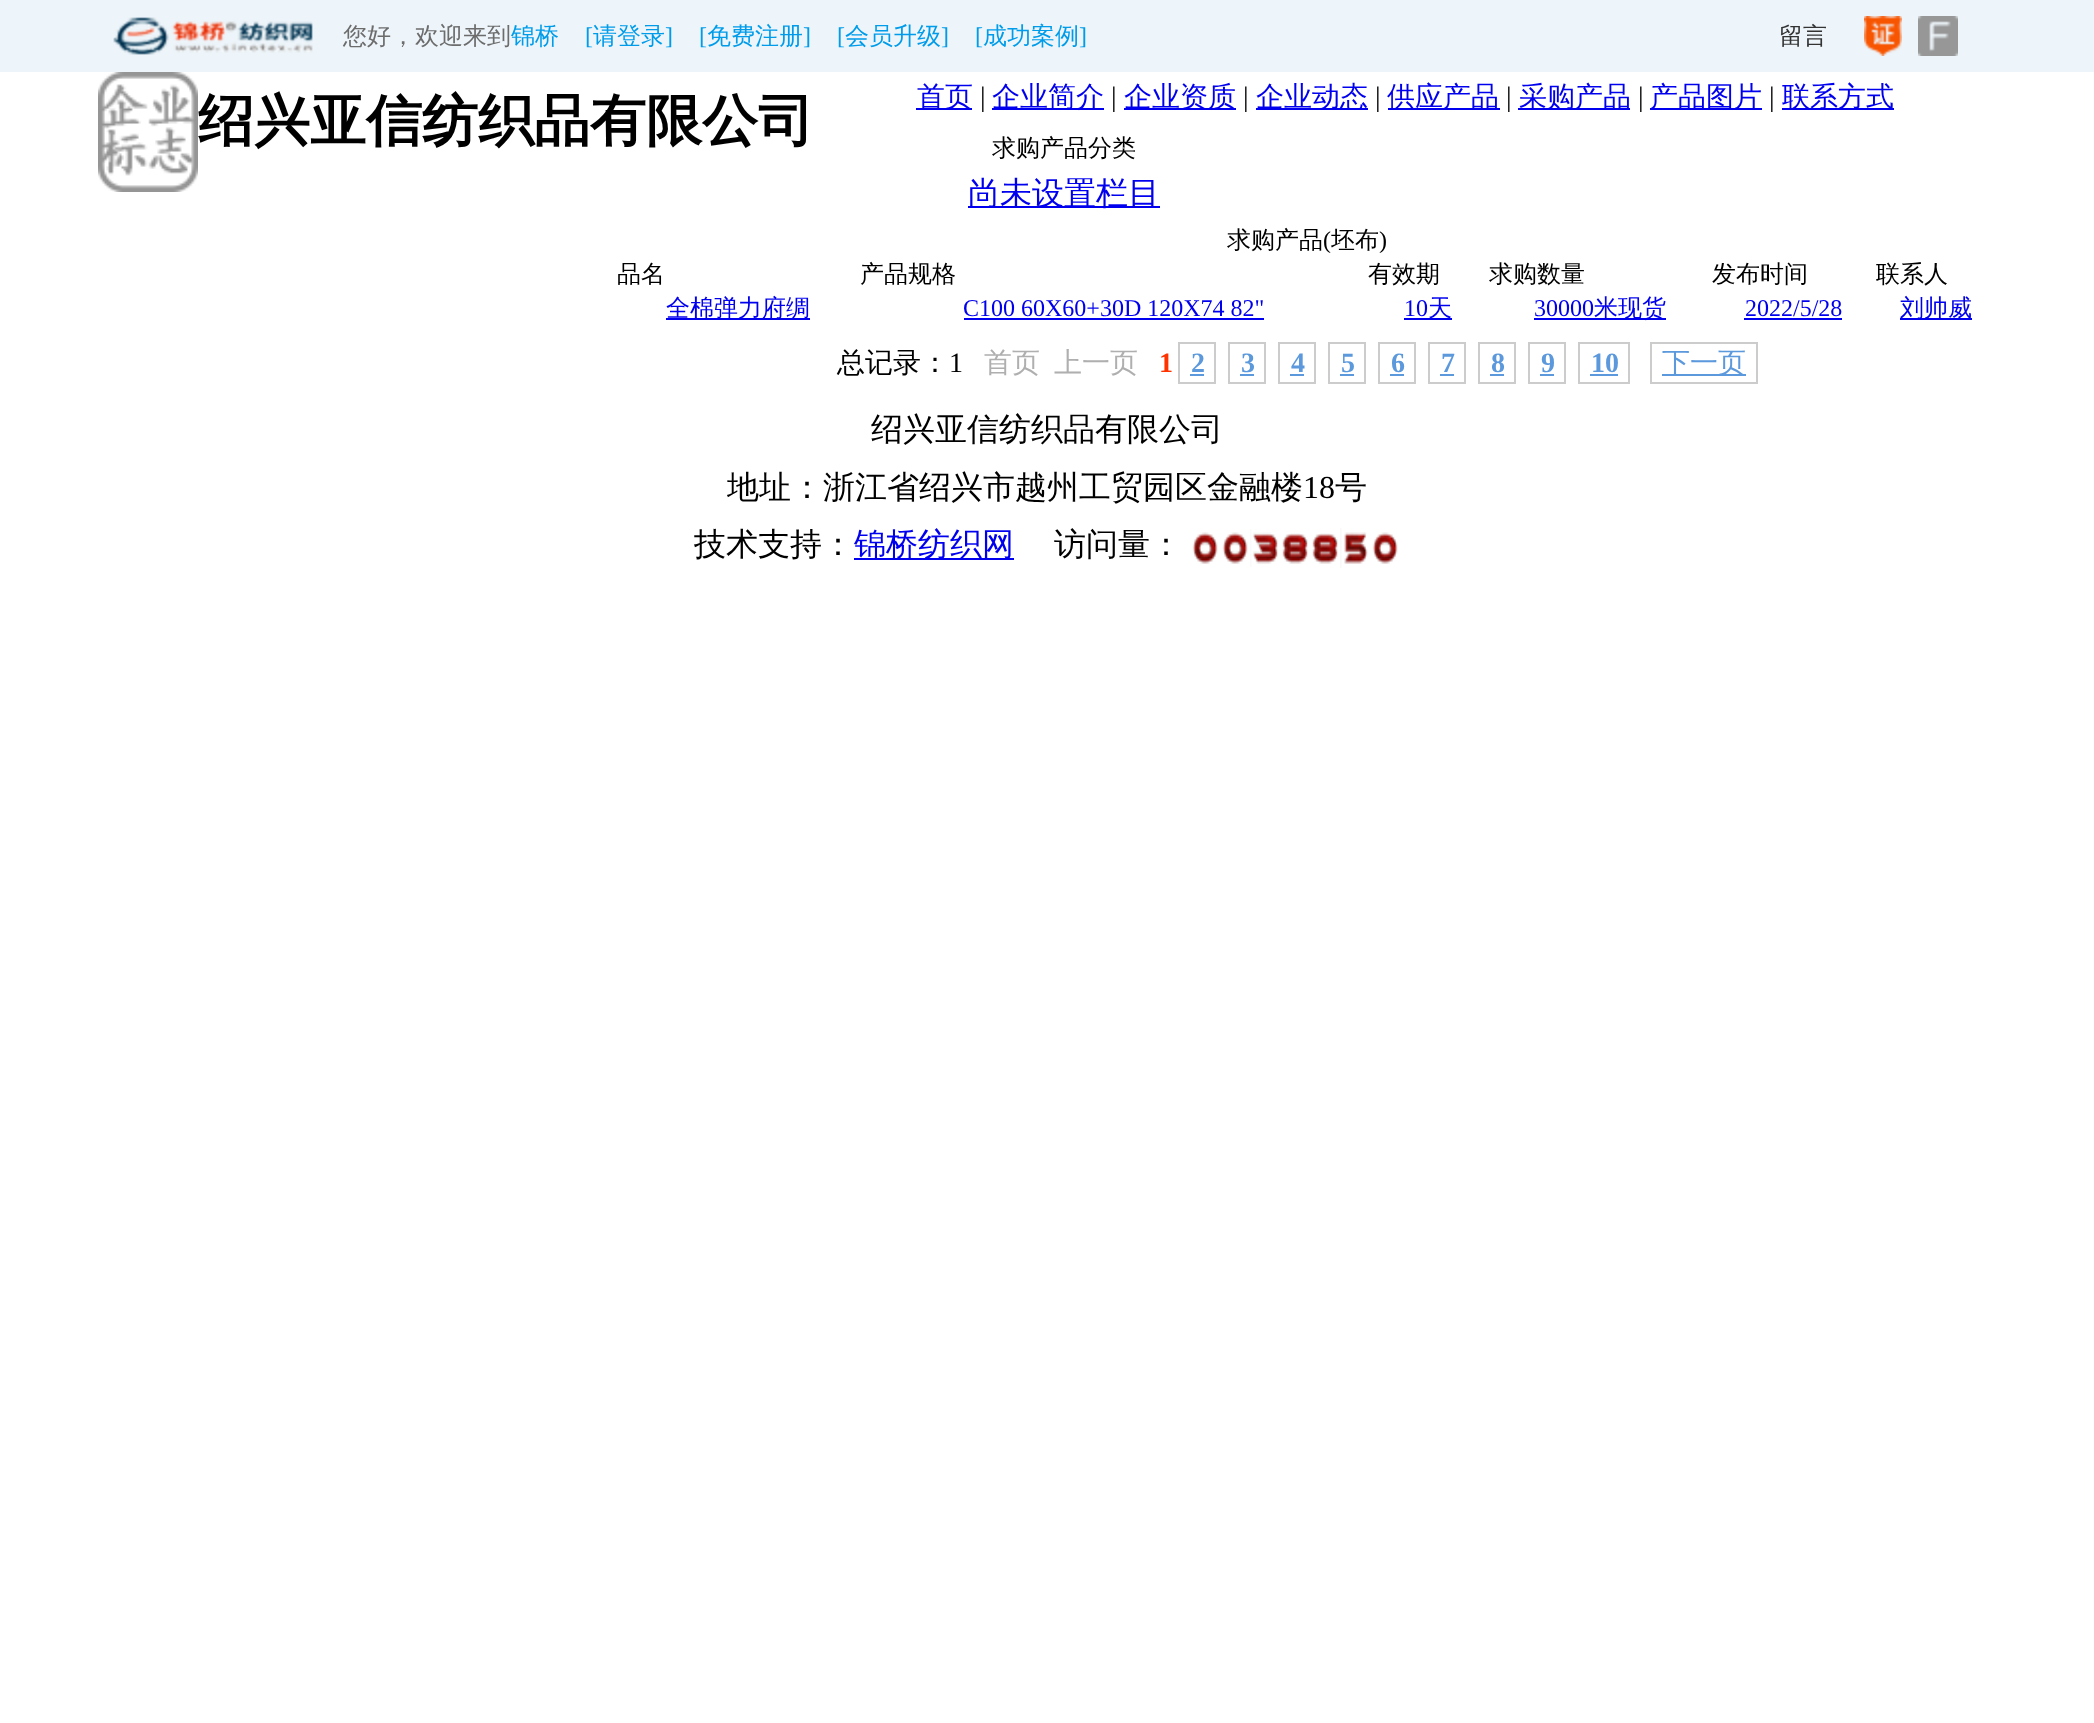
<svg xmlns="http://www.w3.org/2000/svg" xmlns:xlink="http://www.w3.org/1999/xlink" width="2094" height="1723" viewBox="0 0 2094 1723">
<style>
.cls-1{font:500 24px WenQuanYi Zen Hei;fill:#6c6c6c}
.cls-2{font:500 24px WenQuanYi Zen Hei;fill:#009cea}
.cls-3{font:24px Liberation Serif;fill:#009cea}
.cls-4{font:500 24px WenQuanYi Zen Hei;fill:#333333}
.cls-5{font:bold 56px WenQuanYi Zen Hei;fill:#000000}
.cls-6{font:500 28px WenQuanYi Zen Hei;fill:#0000ee}
.cls-7{font:28px Liberation Serif;fill:#000000}
.cls-8{font:500 24px WenQuanYi Zen Hei;fill:#000000}
.cls-9{font:500 32px WenQuanYi Zen Hei;fill:#0000ee}
.cls-10{font:24px Liberation Serif;fill:#000000}
.cls-11{font:500 24px WenQuanYi Zen Hei;fill:#0000ee}
.cls-12{font:24px Liberation Serif;fill:#0000ee}
.cls-13{font:500 28px WenQuanYi Zen Hei;fill:#000000}
.cls-14{font:500 28px WenQuanYi Zen Hei;fill:#afafaf}
.cls-15{font:bold 28px Liberation Serif;fill:#ff3300}
.cls-16{font:bold 28px Liberation Serif;fill:#5c99dc}
.cls-17{font:500 28px WenQuanYi Zen Hei;fill:#5c99dc}
.cls-18{font:500 32px WenQuanYi Zen Hei;fill:#000000}
.cls-19{font:32px Liberation Serif;fill:#000000}
</style>
<rect width="100%" height="100%" fill="#ffffff"/>
<rect fill="#edf5fa" x="0" y="0" width="2094" height="72"/>
<image xlink:href="image0.png" x="113" y="17" width="200" height="38"/>
<image xlink:href="image1.png" x="1864" y="16" width="38" height="40"/>
<image xlink:href="image2.png" x="1918" y="16" width="40" height="40"/>
<image xlink:href="image3.png" x="98" y="72" width="100" height="120"/>
<rect fill="#0000ee" x="916" y="108" width="56" height="2"/>
<rect fill="#0000ee" x="992" y="108" width="112" height="2"/>
<rect fill="#0000ee" x="1124" y="108" width="112" height="2"/>
<rect fill="#0000ee" x="1256" y="108" width="112" height="2"/>
<rect fill="#0000ee" x="1388" y="108" width="112" height="2"/>
<rect fill="#0000ee" x="1518" y="108" width="112" height="2"/>
<rect fill="#0000ee" x="1650" y="108" width="112" height="2"/>
<rect fill="#0000ee" x="1782" y="108" width="112" height="2"/>
<rect fill="#0000ee" x="968" y="206" width="192" height="2"/>
<rect fill="#0000ee" x="666" y="318" width="144" height="2"/>
<rect fill="#0000ee" x="964" y="318" width="300" height="2"/>
<rect fill="#0000ee" x="1404" y="318" width="48" height="2"/>
<rect fill="#0000ee" x="1534" y="318" width="132" height="2"/>
<rect fill="#0000ee" x="1744" y="318" width="98" height="2"/>
<rect fill="#0000ee" x="1900" y="318" width="72" height="2"/>
<rect fill="none" stroke="#cccccc" stroke-width="2" x="1179" y="343" width="36" height="40"/>
<rect fill="#5c99dc" x="1190" y="374" width="14" height="2"/>
<rect fill="none" stroke="#cccccc" stroke-width="2" x="1229" y="343" width="36" height="40"/>
<rect fill="#5c99dc" x="1240" y="374" width="14" height="2"/>
<rect fill="none" stroke="#cccccc" stroke-width="2" x="1279" y="343" width="36" height="40"/>
<rect fill="#5c99dc" x="1290" y="374" width="14" height="2"/>
<rect fill="none" stroke="#cccccc" stroke-width="2" x="1329" y="343" width="36" height="40"/>
<rect fill="#5c99dc" x="1340" y="374" width="14" height="2"/>
<rect fill="none" stroke="#cccccc" stroke-width="2" x="1379" y="343" width="36" height="40"/>
<rect fill="#5c99dc" x="1390" y="374" width="14" height="2"/>
<rect fill="none" stroke="#cccccc" stroke-width="2" x="1429" y="343" width="36" height="40"/>
<rect fill="#5c99dc" x="1440" y="374" width="14" height="2"/>
<rect fill="none" stroke="#cccccc" stroke-width="2" x="1479" y="343" width="36" height="40"/>
<rect fill="#5c99dc" x="1490" y="374" width="14" height="2"/>
<rect fill="none" stroke="#cccccc" stroke-width="2" x="1529" y="343" width="36" height="40"/>
<rect fill="#5c99dc" x="1540" y="374" width="14" height="2"/>
<rect fill="none" stroke="#cccccc" stroke-width="2" x="1579" y="343" width="50" height="40"/>
<rect fill="#5c99dc" x="1590" y="374" width="28" height="2"/>
<rect fill="none" stroke="#cccccc" stroke-width="2" x="1651" y="343" width="106" height="40"/>
<rect fill="#5c99dc" x="1662" y="374" width="84" height="2"/>
<rect fill="#0000ee" x="854" y="558" width="160" height="2"/>
<image xlink:href="image4.png" x="1192" y="532" width="26" height="32"/>
<image xlink:href="image4.png" x="1222" y="532" width="26" height="32"/>
<image xlink:href="image5.png" x="1250" y="529" width="28" height="38"/>
<image xlink:href="image6.png" x="1282" y="533" width="26" height="31"/>
<image xlink:href="image7.png" x="1312" y="533" width="26" height="31"/>
<image xlink:href="image8.png" x="1340" y="528" width="28" height="40"/>
<image xlink:href="image9.png" x="1372" y="532" width="26" height="32"/>
<text class="cls-1" x="343" y="44">您好，欢迎来到</text>
<text class="cls-2" x="511" y="44">锦桥</text>
<text class="cls-3" x="585" y="44">[</text>
<text class="cls-2" x="593" y="44">请登录</text>
<text class="cls-3" x="665" y="44">]</text>
<text class="cls-3" x="699" y="44">[</text>
<text class="cls-2" x="707" y="44">免费注册</text>
<text class="cls-3" x="803" y="44">]</text>
<text class="cls-3" x="837" y="44">[</text>
<text class="cls-2" x="845" y="44">会员升级</text>
<text class="cls-3" x="941" y="44">]</text>
<text class="cls-3" x="975" y="44">[</text>
<text class="cls-2" x="983" y="44">成功案例</text>
<text class="cls-3" x="1079" y="44">]</text>
<text class="cls-4" x="1779" y="44">留言</text>
<text class="cls-5" x="198" y="140">绍兴亚信纺织品有限公司</text>
<text class="cls-6" x="917" y="106">首页</text>
<text class="cls-7" x="980" y="106">|</text>
<text class="cls-6" x="992" y="106">企业简介</text>
<text class="cls-7" x="1111" y="106">|</text>
<text class="cls-6" x="1124" y="106">企业资质</text>
<text class="cls-7" x="1243" y="106">|</text>
<text class="cls-6" x="1256" y="106">企业动态</text>
<text class="cls-7" x="1375" y="106">|</text>
<text class="cls-6" x="1387" y="106">供应产品</text>
<text class="cls-7" x="1506" y="106">|</text>
<text class="cls-6" x="1519" y="106">采购产品</text>
<text class="cls-7" x="1638" y="106">|</text>
<text class="cls-6" x="1650" y="106">产品图片</text>
<text class="cls-7" x="1769" y="106">|</text>
<text class="cls-6" x="1782" y="106">联系方式</text>
<text class="cls-8" x="992" y="156">求购产品分类</text>
<text class="cls-9" x="968" y="204">尚未设置栏目</text>
<text class="cls-8" x="1227" y="248">求购产品</text>
<text class="cls-10" x="1323" y="248">(</text>
<text class="cls-8" x="1331" y="248">坯布</text>
<text class="cls-10" x="1379" y="248">)</text>
<text class="cls-8" x="617" y="282">品名</text>
<text class="cls-8" x="860" y="282">产品规格</text>
<text class="cls-8" x="1368" y="282">有效期</text>
<text class="cls-8" x="1489" y="282">求购数量</text>
<text class="cls-8" x="1712" y="282">发布时间</text>
<text class="cls-8" x="1876" y="282">联系人</text>
<text class="cls-11" x="666" y="316">全棉弹力府绸</text>
<text class="cls-12" x="963" y="316">C100 60X60+30D 120X74 82"</text>
<text class="cls-12" x="1404" y="316">10</text>
<text class="cls-11" x="1428" y="316">天</text>
<text class="cls-12" x="1534" y="316">30000</text>
<text class="cls-11" x="1594" y="316">米现货</text>
<text class="cls-12" x="1745" y="316">2022/5/28</text>
<text class="cls-11" x="1900" y="316">刘帅威</text>
<text class="cls-13" x="837" y="372">总记录：</text>
<text class="cls-7" x="949" y="372">1</text>
<text class="cls-14" x="984" y="372">首页</text>
<text class="cls-14" x="1054" y="372">上一页</text>
<text class="cls-15" x="1159" y="372">1</text>
<text class="cls-16" x="1191" y="372">2</text>
<text class="cls-16" x="1241" y="372">3</text>
<text class="cls-16" x="1291" y="372">4</text>
<text class="cls-16" x="1341" y="372">5</text>
<text class="cls-16" x="1391" y="372">6</text>
<text class="cls-16" x="1441" y="372">7</text>
<text class="cls-16" x="1491" y="372">8</text>
<text class="cls-16" x="1541" y="372">9</text>
<text class="cls-16" x="1591" y="372">10</text>
<text class="cls-17" x="1662" y="372">下一页</text>
<text class="cls-18" x="871" y="440">绍兴亚信纺织品有限公司</text>
<text class="cls-18" x="727" y="498">地址：浙江省绍兴市越州工贸园区金融楼</text>
<text class="cls-19" x="1303" y="498">18</text>
<text class="cls-18" x="1335" y="498">号</text>
<text class="cls-18" x="694" y="555">技术支持：</text>
<text class="cls-9" x="854" y="555">锦桥纺织网</text>
<text class="cls-18" x="1054" y="555">访问量：</text>
</svg>
